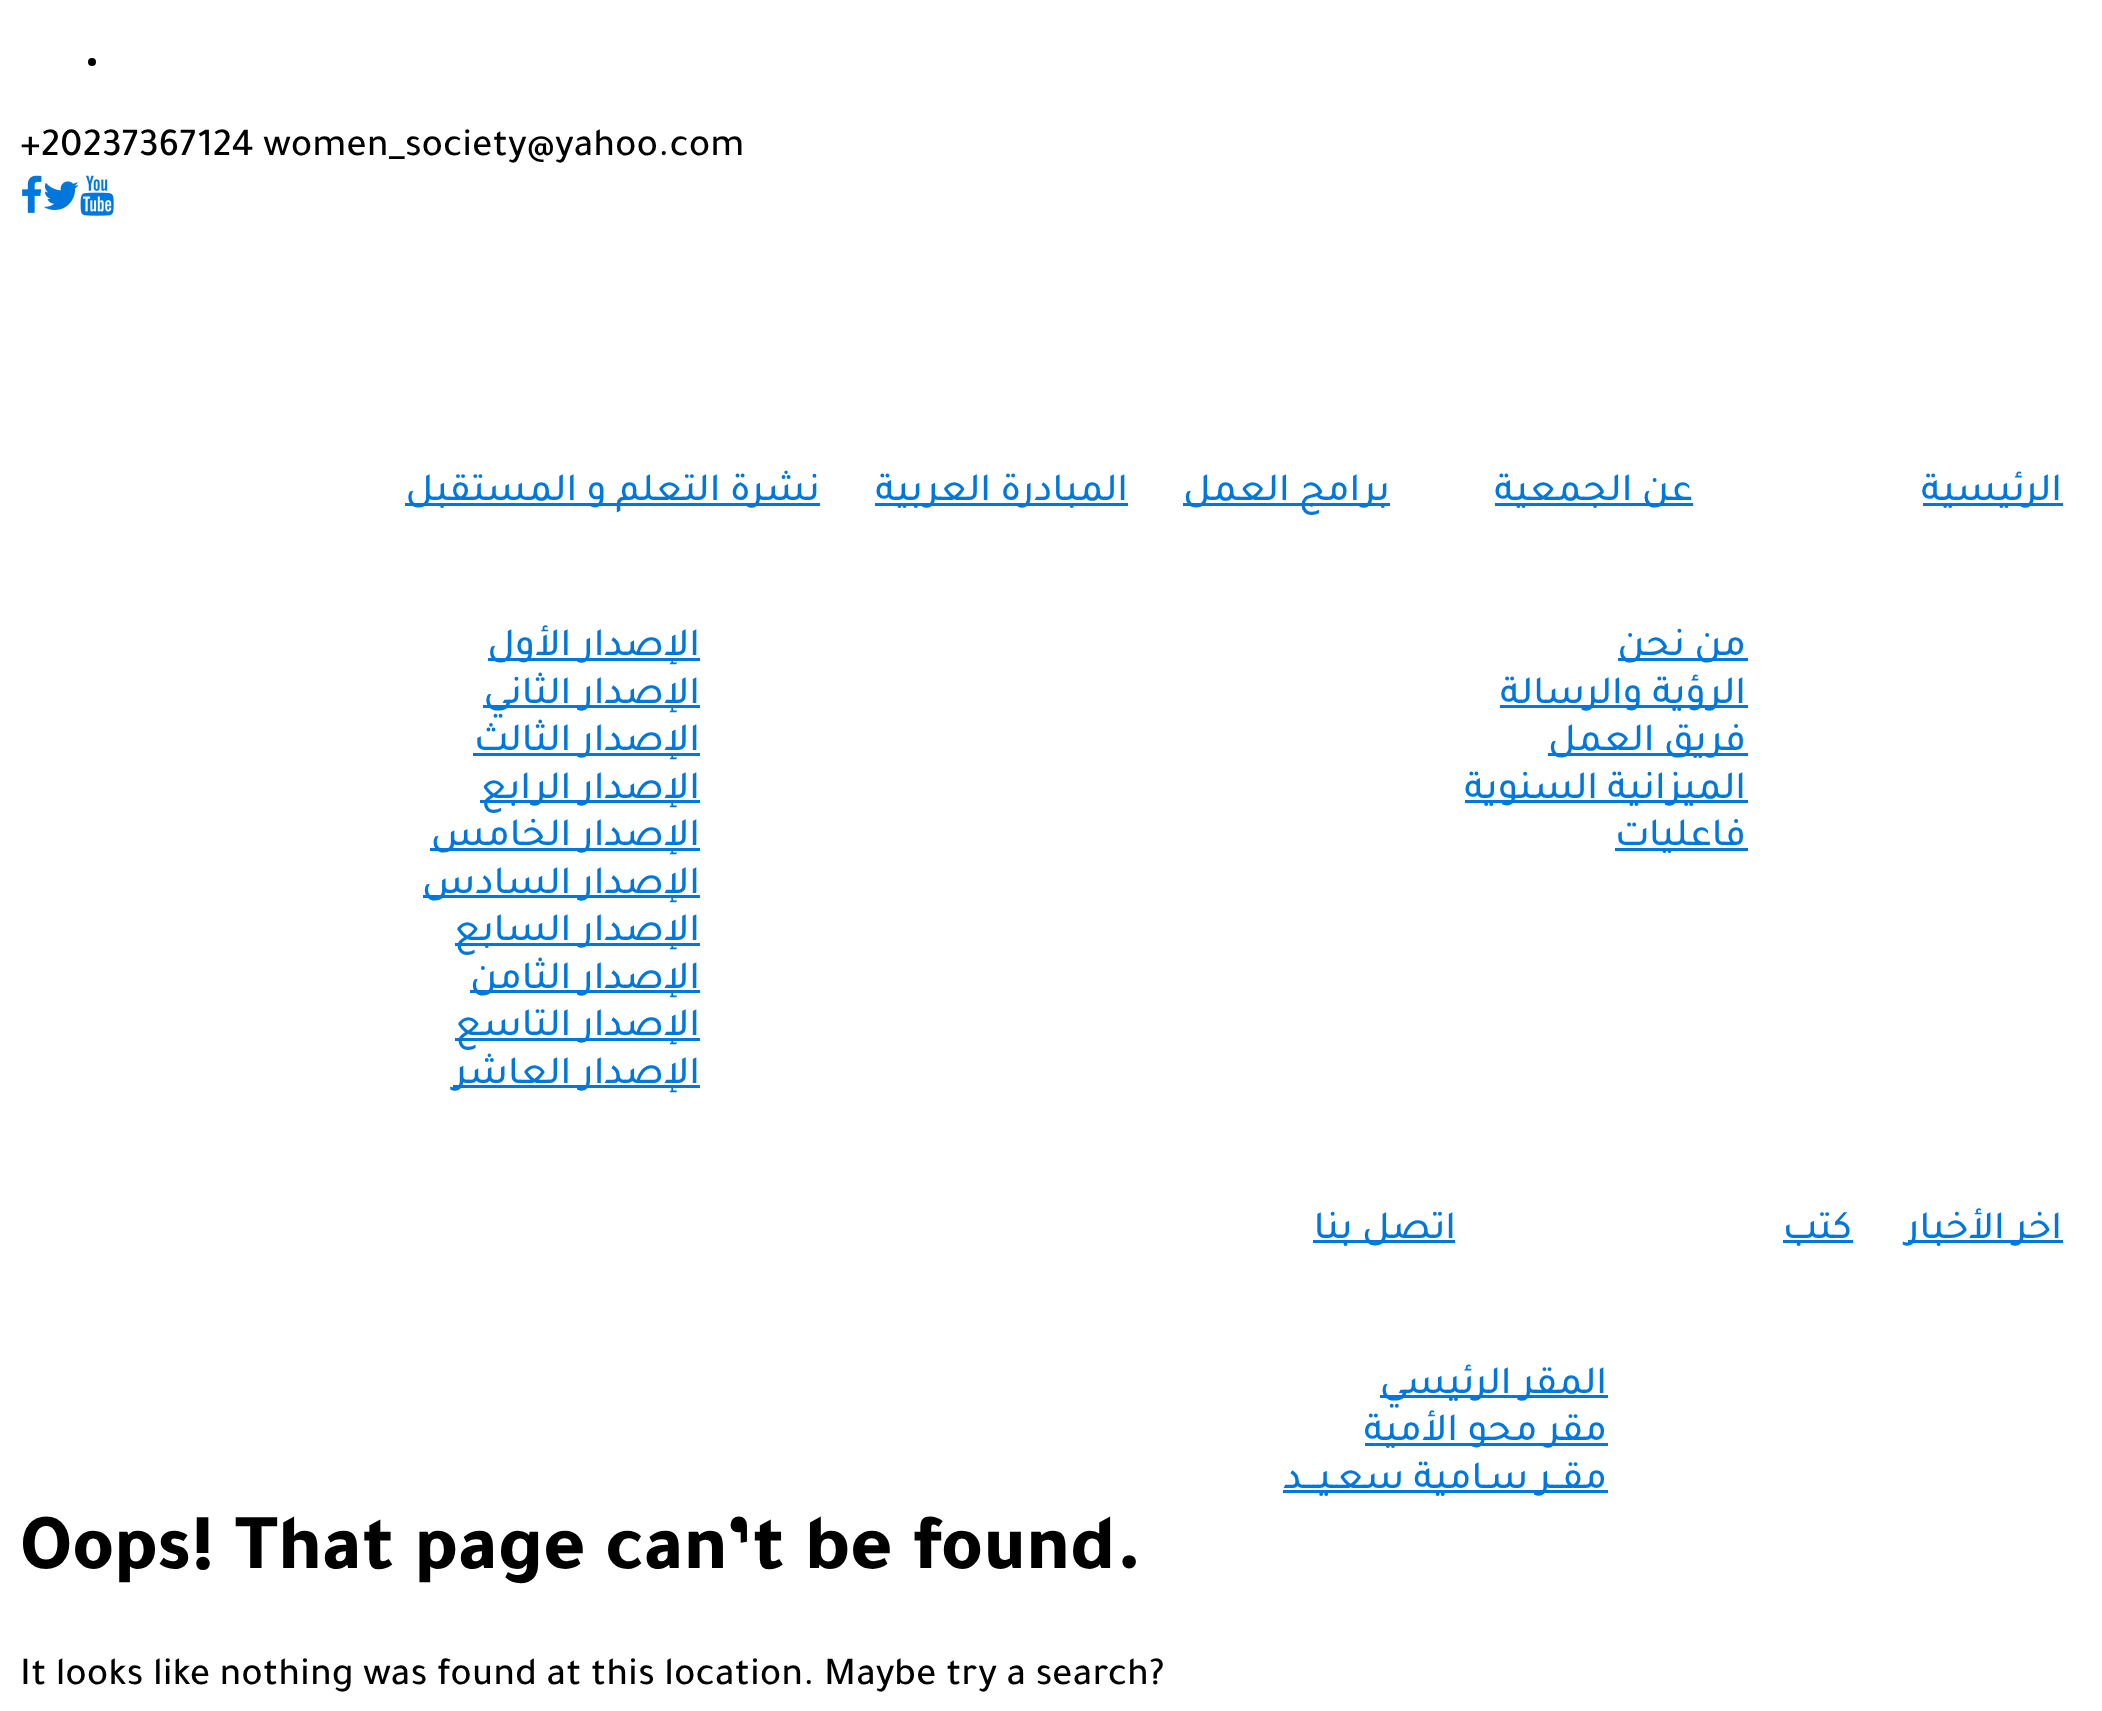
<svg xmlns="http://www.w3.org/2000/svg" xmlns:xlink="http://www.w3.org/1999/xlink" width="2102" height="1711" viewBox="0 0 2102 1711">
<style>
.cls-1{font:500 40px Tajawal;fill:#000000}
.cls-2{font:500 40px Tajawal;direction:rtl;fill:#0077dd}
.cls-3{font:800 80px Tajawal;fill:#000000}
</style>
<rect width="100%" height="100%" fill="#ffffff"/>
<circle fill="#000000" cx="92" cy="62" r="4"/>
<image xlink:href="image0.png" x="80" y="175" width="34" height="41"/>
<image xlink:href="image1.png" x="43" y="181" width="36" height="29"/>
<image xlink:href="image2.png" x="22" y="175" width="20" height="38"/>
<rect fill="#0077dd" x="1923" y="503" width="140" height="3"/>
<rect fill="#0077dd" x="1495" y="503" width="198" height="3"/>
<rect fill="#0077dd" x="1618" y="658" width="130" height="3"/>
<rect fill="#0077dd" x="1500" y="705" width="248" height="3"/>
<rect fill="#0077dd" x="1548" y="753" width="200" height="3"/>
<rect fill="#0077dd" x="1465" y="800" width="283" height="3"/>
<rect fill="#0077dd" x="1615" y="848" width="133" height="3"/>
<rect fill="#0077dd" x="1183" y="503" width="207" height="3"/>
<rect fill="#0077dd" x="875" y="503" width="253" height="3"/>
<rect fill="#0077dd" x="405" y="503" width="415" height="3"/>
<rect fill="#0077dd" x="488" y="658" width="212" height="3"/>
<rect fill="#0077dd" x="483" y="705" width="217" height="3"/>
<rect fill="#0077dd" x="473" y="753" width="227" height="3"/>
<rect fill="#0077dd" x="480" y="800" width="220" height="3"/>
<rect fill="#0077dd" x="430" y="848" width="270" height="3"/>
<rect fill="#0077dd" x="423" y="895" width="277" height="3"/>
<rect fill="#0077dd" x="455" y="943" width="245" height="3"/>
<rect fill="#0077dd" x="470" y="990" width="230" height="3"/>
<rect fill="#0077dd" x="455" y="1038" width="245" height="3"/>
<rect fill="#0077dd" x="453" y="1085" width="247" height="3"/>
<rect fill="#0077dd" x="1908" y="1240" width="155" height="3"/>
<rect fill="#0077dd" x="1783" y="1240" width="70" height="3"/>
<rect fill="#0077dd" x="1313" y="1240" width="142" height="3"/>
<rect fill="#0077dd" x="1380" y="1395" width="228" height="3"/>
<rect fill="#0077dd" x="1365" y="1443" width="243" height="3"/>
<rect fill="#0077dd" x="1283" y="1490" width="325" height="3"/>
<text class="cls-1" x="20" y="155">+20237367124 women_society@yahoo.com</text>
<text class="cls-2" x="2062" y="500">الرئيسية</text>
<text class="cls-2" x="1693" y="500">عن الجمعية</text>
<text class="cls-2"><tspan x="1746" y="655">من نحن</tspan><tspan x="1746" y="703">الرؤية والرسالة</tspan><tspan x="1746" y="750">فريق العمل</tspan><tspan x="1746" y="798">الميزانية السنوية</tspan><tspan x="1746" y="845">فاعليات</tspan></text>
<text class="cls-2" x="1390" y="500">برامج العمل</text>
<text class="cls-2" x="1128" y="500">المبادرة العربية</text>
<text class="cls-2" x="820" y="500">نشرة التعلم و المستقبل</text>
<text class="cls-2"><tspan x="700" y="655">الإصدار الأول</tspan><tspan x="700" y="703">الإصدار الثاني</tspan><tspan x="700" y="750">الإصدار الثالث</tspan><tspan x="700" y="798">الإصدار الرابع</tspan><tspan x="700" y="845">الإصدار الخامس</tspan><tspan x="700" y="893">الإصدار السادس</tspan><tspan x="700" y="940">الإصدار السابع</tspan><tspan x="700" y="988">الإصدار الثامن</tspan><tspan x="700" y="1035">الإصدار التاسع</tspan><tspan x="700" y="1083">الإصدار العاشر</tspan></text>
<text class="cls-2" x="2062" y="1238">اخر الأخبار</text>
<text class="cls-2" x="1852" y="1238">كتب</text>
<text class="cls-2" x="1456" y="1238">اتصل بنا</text>
<text class="cls-2"><tspan x="1607" y="1393">المقر الرئيسي</tspan><tspan x="1607" y="1440">مقر محو الأمية</tspan><tspan x="1607" y="1488">مقــر سـامية سعـيـــد</tspan></text>
<text class="cls-3" x="20" y="1568">Oops! That page can’t be found.</text>
<text class="cls-1" x="20" y="1684">It looks like nothing was found at this location. Maybe try a search?</text>
</svg>
